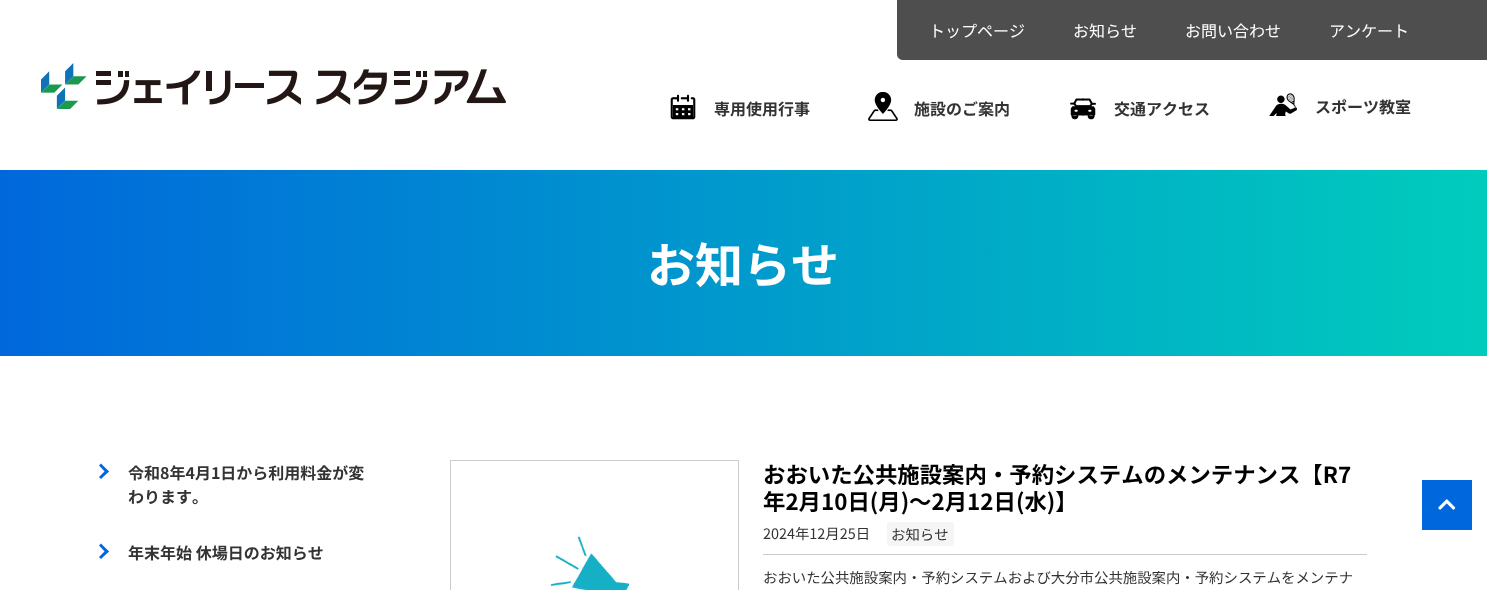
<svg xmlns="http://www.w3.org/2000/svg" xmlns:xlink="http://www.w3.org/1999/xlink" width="1487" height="590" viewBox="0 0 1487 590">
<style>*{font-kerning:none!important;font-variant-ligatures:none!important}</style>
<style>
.cls-1{font:16px Noto Sans JP;fill:#ffffff}
.cls-2{font:bold 16px Noto Sans JP;fill:#333333}
.cls-3{font:bold 48px Noto Sans JP;fill:#ffffff}
.cls-4{font:bold 22.4px Noto Sans JP;fill:#000000}
.cls-5{font:14.4px Noto Sans JP;fill:#333333}
</style>
<defs>
<linearGradient id="g1" gradientUnits="userSpaceOnUse" x1="0" y1="263" x2="1487" y2="263"><stop offset="0" stop-color="#0068dc"/><stop offset="1" stop-color="#00ccbd"/></linearGradient>
</defs>
<rect width="100%" height="100%" fill="#ffffff"/>
<path fill="#4e4e4e" d="M897 0H1487V60H903C899.5 60 897 57.5 897 54Z"/>
<image xlink:href="image0.png" x="41" y="63" width="465" height="46"/>
<image xlink:href="image1.png" x="670" y="94" width="26" height="26"/>
<image xlink:href="image2.png" x="868" y="92" width="30" height="29"/>
<image xlink:href="image3.png" x="1070" y="98" width="26" height="22"/>
<image xlink:href="image4.png" x="1269" y="93" width="28" height="23"/>
<rect fill="url(#g1)" x="0" y="170" width="1487" height="186"/>
<path fill="#0068dc" d="M101 463.5L109 471.5L106.5 473.5L99 465.5Z"/>
<path fill="#0068dc" d="M106.5 469.5L109 471.5L101 479L99 477Z"/>
<path fill="#0068dc" d="M101 543.5L109 551.5L106.5 553.5L99 545.5Z"/>
<path fill="#0068dc" d="M106.5 549.5L109 551.5L101 559L99 557Z"/>
<rect fill="none" stroke="#cccccc" x="450.5" y="460.5" width="288" height="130"/>
<image xlink:href="image5.png" x="550" y="536" width="79" height="54"/>
<rect fill="#f5f5f5" x="887" y="522" width="67" height="24" rx="3"/>
<rect fill="#cccccc" x="763" y="554" width="604" height="1"/>
<rect fill="#0068dc" x="1422" y="480" width="50" height="50"/>
<image xlink:href="image6.png" x="1438" y="499" width="18" height="11"/>
<text class="cls-1" x="929" y="37">トップページ</text>
<text class="cls-1" x="1073" y="37">お知らせ</text>
<text class="cls-1" x="1185" y="37">お問い合わせ</text>
<text class="cls-1" x="1329" y="37">アンケート</text>
<text class="cls-2" x="714" y="115">専用使用行事</text>
<text class="cls-2" x="914" y="115">施設のご案内</text>
<text class="cls-2" x="1114" y="115">交通アクセス</text>
<text class="cls-2" x="1315" y="113">スポーツ教室</text>
<text class="cls-3" x="647" y="283">お知らせ</text>
<text class="cls-2"><tspan x="128" y="479">令和8年4月1日から利用料金が変</tspan><tspan x="128" y="503">わります。</tspan></text>
<text class="cls-2" x="128" y="559">年末年始 休場日のお知らせ</text>
<text class="cls-4"><tspan x="763" y="483">おおいた公共施設案内・予約システムのメンテナンス【R7</tspan><tspan x="763" y="510">年2月10日(月)～2月12日(水)】</tspan></text>
<text class="cls-5" x="763" y="539">2024年12月25日</text>
<text class="cls-5" x="891" y="540">お知らせ</text>
<text class="cls-5" x="763" y="583">おおいた公共施設案内・予約システムおよび大分市公共施設案内・予約システムをメンテナ</text>
</svg>
